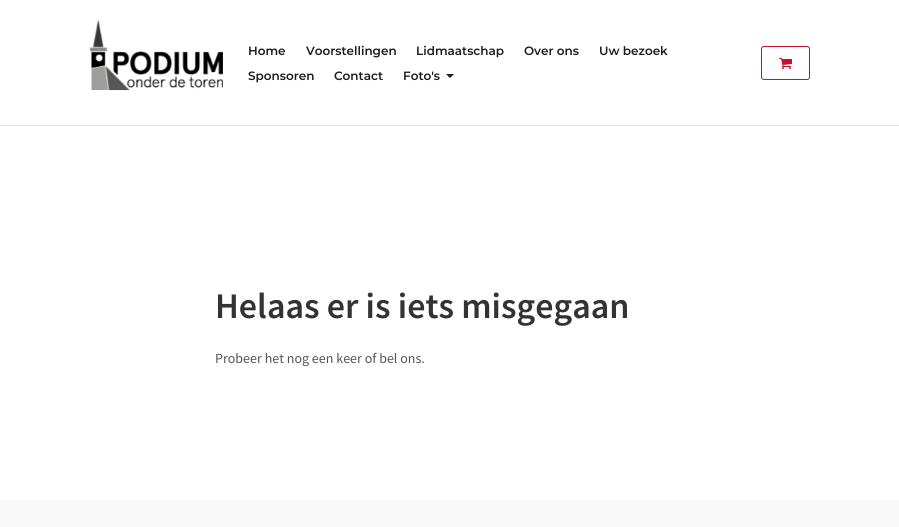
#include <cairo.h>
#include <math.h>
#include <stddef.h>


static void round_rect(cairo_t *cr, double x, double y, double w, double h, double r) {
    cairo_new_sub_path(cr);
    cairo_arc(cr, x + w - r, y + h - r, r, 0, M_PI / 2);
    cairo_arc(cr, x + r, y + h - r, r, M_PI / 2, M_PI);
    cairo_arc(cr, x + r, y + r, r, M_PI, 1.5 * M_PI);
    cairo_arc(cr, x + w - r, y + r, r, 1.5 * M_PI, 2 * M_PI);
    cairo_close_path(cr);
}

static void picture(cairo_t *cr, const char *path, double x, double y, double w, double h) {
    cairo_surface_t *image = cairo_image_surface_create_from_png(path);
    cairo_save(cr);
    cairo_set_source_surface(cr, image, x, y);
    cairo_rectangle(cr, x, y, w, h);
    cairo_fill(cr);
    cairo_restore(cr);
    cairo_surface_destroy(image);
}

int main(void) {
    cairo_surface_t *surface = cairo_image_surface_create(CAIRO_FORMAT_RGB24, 899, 527);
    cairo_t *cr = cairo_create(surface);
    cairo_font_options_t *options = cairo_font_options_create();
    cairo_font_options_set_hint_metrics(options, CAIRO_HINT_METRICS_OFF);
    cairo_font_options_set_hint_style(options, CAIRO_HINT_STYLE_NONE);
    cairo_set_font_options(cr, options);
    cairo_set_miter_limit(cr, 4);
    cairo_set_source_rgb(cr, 1, 1, 1);
    cairo_paint(cr);
    cairo_set_source_rgb(cr, 0.902, 0.902, 0.902);
    cairo_rectangle(cr, 0, 125, 899, 1);
    cairo_fill(cr);
    picture(cr, "img1.png", 89, 20, 134, 71);
    cairo_select_font_face(cr, "Montserrat SemiBold", CAIRO_FONT_SLANT_NORMAL, CAIRO_FONT_WEIGHT_NORMAL);
    cairo_set_font_size(cr, 12);
    cairo_set_source_rgb(cr, 0.114, 0.114, 0.106);
    cairo_move_to(cr, 248, 55);
    cairo_show_text(cr, "Home");
    cairo_move_to(cr, 306, 55);
    cairo_show_text(cr, "Voorstellingen");
    cairo_move_to(cr, 416, 55);
    cairo_show_text(cr, "Lidmaatschap");
    cairo_move_to(cr, 524, 55);
    cairo_show_text(cr, "Over ons");
    cairo_move_to(cr, 599, 55);
    cairo_show_text(cr, "Uw bezoek");
    cairo_move_to(cr, 248, 80);
    cairo_show_text(cr, "Sponsoren");
    cairo_move_to(cr, 334, 80);
    cairo_show_text(cr, "Contact");
    cairo_move_to(cr, 403, 80);
    cairo_show_text(cr, "Foto's");
    cairo_new_path(cr);
    cairo_move_to(cr, 446, 74);
    cairo_line_to(cr, 454, 74);
    cairo_line_to(cr, 450, 78);
    cairo_close_path(cr);
    cairo_fill(cr);
    round_rect(cr, 761.5, 46.5, 48, 33, 2.5);
    cairo_set_source_rgb(cr, 0.784, 0.063, 0.18);
    cairo_set_line_width(cr, 1);
    cairo_stroke(cr);
    picture(cr, "img2.png", 779, 58, 13, 11);
    cairo_select_font_face(cr, "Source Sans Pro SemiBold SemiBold", CAIRO_FONT_SLANT_NORMAL, CAIRO_FONT_WEIGHT_NORMAL);
    cairo_set_font_size(cr, 36);
    cairo_set_source_rgb(cr, 0.2, 0.2, 0.2);
    cairo_move_to(cr, 215, 318);
    cairo_show_text(cr, "Helaas er is iets misgegaan");
    cairo_select_font_face(cr, "Source Sans Pro", CAIRO_FONT_SLANT_NORMAL, CAIRO_FONT_WEIGHT_NORMAL);
    cairo_set_font_size(cr, 14);
    cairo_set_source_rgb(cr, 0.333, 0.333, 0.333);
    cairo_move_to(cr, 215, 363);
    cairo_show_text(cr, "Probeer het nog een keer of bel ons.");
    cairo_set_source_rgb(cr, 0.969, 0.969, 0.969);
    cairo_rectangle(cr, 0, 500, 899, 27);
    cairo_fill(cr);
    cairo_surface_write_to_png(surface, "page.png");
    cairo_font_options_destroy(options);
    cairo_destroy(cr);
    cairo_surface_destroy(surface);
    return 0;
}
